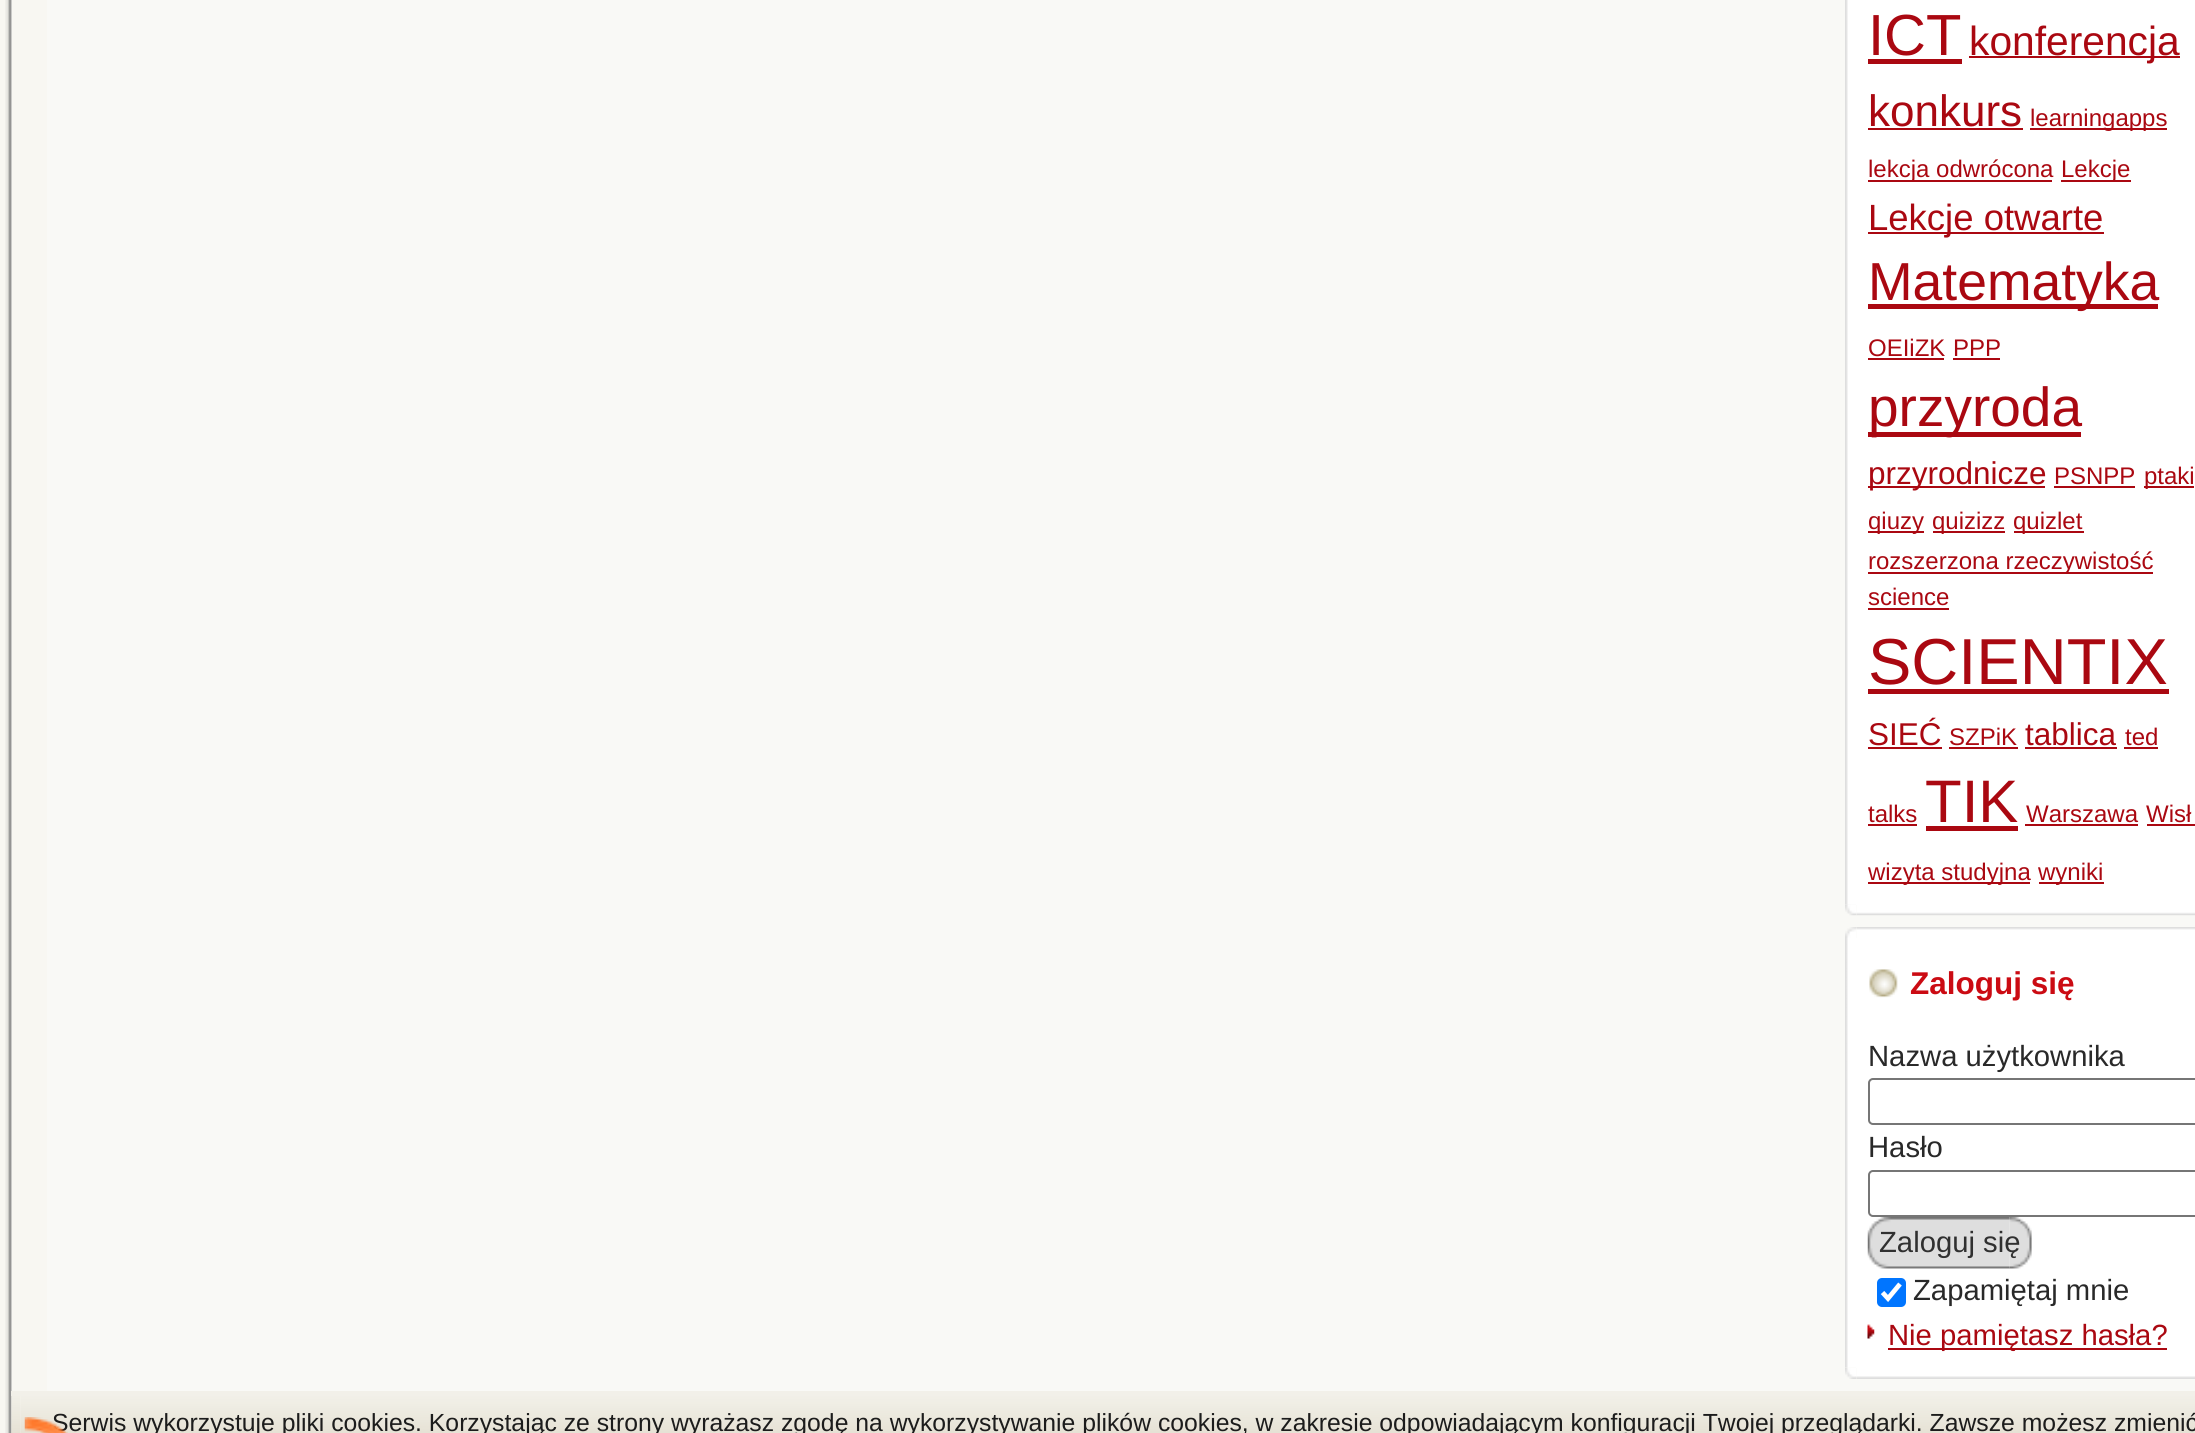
#include <cairo.h>
#include <math.h>
#include <stddef.h>


static void round_rect(cairo_t *cr, double x, double y, double w, double h, double r) {
    cairo_new_sub_path(cr);
    cairo_arc(cr, x + w - r, y + h - r, r, 0, M_PI / 2);
    cairo_arc(cr, x + r, y + h - r, r, M_PI / 2, M_PI);
    cairo_arc(cr, x + r, y + r, r, M_PI, 1.5 * M_PI);
    cairo_arc(cr, x + w - r, y + r, r, 1.5 * M_PI, 2 * M_PI);
    cairo_close_path(cr);
}

static void picture(cairo_t *cr, const char *path, double x, double y, double w, double h) {
    cairo_surface_t *image = cairo_image_surface_create_from_png(path);
    cairo_save(cr);
    cairo_set_source_surface(cr, image, x, y);
    cairo_rectangle(cr, x, y, w, h);
    cairo_fill(cr);
    cairo_restore(cr);
    cairo_surface_destroy(image);
}

int main(void) {
    cairo_surface_t *surface = cairo_image_surface_create(CAIRO_FORMAT_RGB24, 2195, 1433);
    cairo_t *cr = cairo_create(surface);
    cairo_font_options_t *options = cairo_font_options_create();
    cairo_font_options_set_hint_metrics(options, CAIRO_HINT_METRICS_OFF);
    cairo_font_options_set_hint_style(options, CAIRO_HINT_STYLE_NONE);
    cairo_set_font_options(cr, options);
    cairo_set_miter_limit(cr, 4);
    cairo_set_source_rgb(cr, 0.969, 0.965, 0.949);
    cairo_paint(cr);
    picture(cr, "img1.png", 5, 0, 7, 1433);
    cairo_set_source_rgb(cr, 0.976, 0.976, 0.961);
    cairo_rectangle(cr, 47, 0, 2148, 1391);
    cairo_fill(cr);
    picture(cr, "img2.png", 1845, 0, 11, 904);
    picture(cr, "img3.png", 1845, 904, 12, 12);
    cairo_set_source_rgb(cr, 1, 1, 1);
    cairo_rectangle(cr, 1856, 0, 339, 905);
    cairo_fill(cr);
    cairo_select_font_face(cr, "Liberation Sans", CAIRO_FONT_SLANT_NORMAL, CAIRO_FONT_WEIGHT_NORMAL);
    cairo_set_font_size(cr, 58);
    cairo_set_source_rgb(cr, 0.667, 0.035, 0.067);
    cairo_move_to(cr, 1868, 55);
    cairo_show_text(cr, "ICT");
    cairo_rectangle(cr, 1868, 59, 94, 5);
    cairo_fill(cr);
    cairo_rectangle(cr, 1969, 56, 211, 2);
    cairo_fill(cr);
    cairo_set_font_size(cr, 40.75);
    cairo_move_to(cr, 1969, 55);
    cairo_show_text(cr, "konferencja");
    cairo_set_font_size(cr, 44);
    cairo_move_to(cr, 1868, 126);
    cairo_show_text(cr, "konkurs");
    cairo_rectangle(cr, 1868, 128, 155, 2);
    cairo_fill(cr);
    cairo_rectangle(cr, 2030, 128, 137, 2);
    cairo_fill(cr);
    cairo_set_font_size(cr, 24);
    cairo_move_to(cr, 2030, 126);
    cairo_show_text(cr, "learningapps");
    cairo_rectangle(cr, 1868, 180, 184, 2);
    cairo_fill(cr);
    cairo_move_to(cr, 1868, 177);
    cairo_show_text(cr, "lekcja odwrócona");
    cairo_rectangle(cr, 2061, 180, 70, 2);
    cairo_fill(cr);
    cairo_move_to(cr, 2061, 177);
    cairo_show_text(cr, "Lekcje");
    cairo_rectangle(cr, 1868, 232, 236, 2);
    cairo_fill(cr);
    cairo_set_font_size(cr, 36.5);
    cairo_move_to(cr, 1868, 230);
    cairo_show_text(cr, "Lekcje otwarte");
    cairo_rectangle(cr, 1868, 304, 290, 5);
    cairo_fill(cr);
    cairo_set_font_size(cr, 53.5);
    cairo_move_to(cr, 1868, 300);
    cairo_show_text(cr, "Matematyka");
    cairo_set_font_size(cr, 24);
    cairo_move_to(cr, 1868, 356);
    cairo_show_text(cr, "OEIiZK");
    cairo_rectangle(cr, 1868, 358, 76, 2);
    cairo_fill(cr);
    cairo_move_to(cr, 1953, 356);
    cairo_show_text(cr, "PPP");
    cairo_rectangle(cr, 1953, 358, 47, 2);
    cairo_fill(cr);
    cairo_rectangle(cr, 1868, 432, 213, 5);
    cairo_fill(cr);
    cairo_set_font_size(cr, 55);
    cairo_move_to(cr, 1868, 426);
    cairo_show_text(cr, "przyroda");
    cairo_rectangle(cr, 1868, 486, 177, 2);
    cairo_fill(cr);
    cairo_set_font_size(cr, 31.5);
    cairo_move_to(cr, 1868, 484);
    cairo_show_text(cr, "przyrodnicze");
    cairo_set_font_size(cr, 24);
    cairo_move_to(cr, 2054, 484);
    cairo_show_text(cr, "PSNPP");
    cairo_rectangle(cr, 2054, 486, 81, 2);
    cairo_fill(cr);
    cairo_rectangle(cr, 2144, 486, 50, 2);
    cairo_fill(cr);
    cairo_move_to(cr, 2144, 484);
    cairo_show_text(cr, "ptaki");
    cairo_rectangle(cr, 1868, 531, 56, 2);
    cairo_fill(cr);
    cairo_move_to(cr, 1868, 529);
    cairo_show_text(cr, "qiuzy");
    cairo_rectangle(cr, 1933, 531, 72, 2);
    cairo_fill(cr);
    cairo_move_to(cr, 1932, 529);
    cairo_show_text(cr, "quizizz");
    cairo_rectangle(cr, 2014, 531, 70, 2);
    cairo_fill(cr);
    cairo_move_to(cr, 2013, 529);
    cairo_show_text(cr, "quizlet");
    cairo_rectangle(cr, 1868, 572, 285, 2);
    cairo_fill(cr);
    cairo_move_to(cr, 1868, 569);
    cairo_show_text(cr, "rozszerzona rzeczywistość");
    cairo_move_to(cr, 1868, 605);
    cairo_show_text(cr, "science");
    cairo_rectangle(cr, 1868, 608, 81, 2);
    cairo_fill(cr);
    cairo_set_font_size(cr, 65);
    cairo_move_to(cr, 1868, 684);
    cairo_show_text(cr, "SCIENTIX");
    cairo_rectangle(cr, 1868, 689, 301, 5);
    cairo_fill(cr);
    cairo_set_font_size(cr, 31.5);
    cairo_move_to(cr, 1868, 745);
    cairo_show_text(cr, "SIEĆ");
    cairo_rectangle(cr, 1868, 747, 74, 2);
    cairo_fill(cr);
    cairo_set_font_size(cr, 24);
    cairo_move_to(cr, 1949, 745);
    cairo_show_text(cr, "SZPiK");
    cairo_rectangle(cr, 1949, 747, 69, 2);
    cairo_fill(cr);
    cairo_set_font_size(cr, 31.5);
    cairo_move_to(cr, 2025, 745);
    cairo_show_text(cr, "tablica");
    cairo_rectangle(cr, 2025, 747, 92, 2);
    cairo_fill(cr);
    cairo_set_font_size(cr, 24);
    cairo_move_to(cr, 2125, 745);
    cairo_show_text(cr, "ted");
    cairo_rectangle(cr, 2124, 747, 34, 2);
    cairo_fill(cr);
    cairo_move_to(cr, 1868, 822);
    cairo_show_text(cr, "talks");
    cairo_rectangle(cr, 1868, 824, 49, 2);
    cairo_fill(cr);
    cairo_set_font_size(cr, 60);
    cairo_move_to(cr, 1925, 822);
    cairo_show_text(cr, "TIK");
    cairo_rectangle(cr, 1926, 826, 92, 5);
    cairo_fill(cr);
    cairo_set_font_size(cr, 24);
    cairo_move_to(cr, 2026, 822);
    cairo_show_text(cr, "Warszawa");
    cairo_rectangle(cr, 2025, 824, 113, 2);
    cairo_fill(cr);
    cairo_move_to(cr, 2146, 822);
    cairo_show_text(cr, "Wisł");
    cairo_rectangle(cr, 2147, 824, 48, 2);
    cairo_fill(cr);
    cairo_rectangle(cr, 1868, 882, 162, 2);
    cairo_fill(cr);
    cairo_move_to(cr, 1868, 880);
    cairo_show_text(cr, "wizyta studyjna");
    cairo_rectangle(cr, 2039, 882, 65, 2);
    cairo_fill(cr);
    cairo_move_to(cr, 2038, 880);
    cairo_show_text(cr, "wyniki");
    picture(cr, "img4.png", 1856, 905, 339, 11);
    picture(cr, "img5.png", 1845, 927, 12, 11);
    picture(cr, "img6.png", 1856, 927, 339, 11);
    picture(cr, "img12.png", 1845, 1367, 12, 12);
    picture(cr, "img7.png", 1845, 938, 11, 430);
    cairo_set_source_rgb(cr, 1, 1, 1);
    cairo_rectangle(cr, 1856, 938, 339, 430);
    cairo_fill(cr);
    picture(cr, "img8.png", 1869, 969, 29, 29);
    cairo_select_font_face(cr, "Liberation Sans", CAIRO_FONT_SLANT_NORMAL, CAIRO_FONT_WEIGHT_BOLD);
    cairo_set_font_size(cr, 31.5);
    cairo_set_source_rgb(cr, 0.796, 0.043, 0.078);
    cairo_move_to(cr, 1910, 994);
    cairo_show_text(cr, "Zaloguj się");
    cairo_select_font_face(cr, "Liberation Sans", CAIRO_FONT_SLANT_NORMAL, CAIRO_FONT_WEIGHT_NORMAL);
    cairo_set_font_size(cr, 29.25);
    cairo_set_source_rgb(cr, 0.161, 0.161, 0.161);
    cairo_move_to(cr, 1868, 1066);
    cairo_show_text(cr, "Nazwa użytkownika");
    round_rect(cr, 1869, 1079, 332, 45, 4);
    cairo_set_source_rgb(cr, 0.463, 0.463, 0.463);
    cairo_stroke(cr);
    cairo_set_source_rgb(cr, 0.161, 0.161, 0.161);
    cairo_move_to(cr, 1868, 1157);
    cairo_show_text(cr, "Hasło");
    round_rect(cr, 1869, 1171, 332, 45, 4);
    cairo_set_source_rgb(cr, 0.463, 0.463, 0.463);
    cairo_stroke(cr);
    picture(cr, "img9.png", 1867, 1217, 143, 52);
    picture(cr, "img10.png", 2009, 1217, 23, 52);
    cairo_set_source_rgb(cr, 0.188, 0.188, 0.188);
    cairo_move_to(cr, 1879, 1252);
    cairo_show_text(cr, "Zaloguj się");
    cairo_set_source_rgb(cr, 0, 0.459, 1);
    round_rect(cr, 1877, 1278, 29, 29, 5);
    cairo_fill(cr);
    cairo_new_path(cr);
    cairo_move_to(cr, 1882.5, 1292.5);
    cairo_line_to(cr, 1888, 1298.5);
    cairo_line_to(cr, 1900, 1284);
    cairo_set_source_rgb(cr, 1, 1, 1);
    cairo_set_line_width(cr, 4.7);
    cairo_stroke(cr);
    cairo_set_source_rgb(cr, 0.161, 0.161, 0.161);
    cairo_move_to(cr, 1913, 1300);
    cairo_show_text(cr, "Zapamiętaj mnie");
    picture(cr, "img11.png", 1867, 1324, 8, 15);
    cairo_set_source_rgb(cr, 0.667, 0.035, 0.067);
    cairo_rectangle(cr, 1888, 1348, 279, 2);
    cairo_fill(cr);
    cairo_move_to(cr, 1888, 1345);
    cairo_show_text(cr, "Nie pamiętasz hasła?");
    picture(cr, "img13.png", 1856, 1368, 339, 11);
    cairo_set_source_rgb(cr, 0.949, 0.941, 0.914);
    cairo_rectangle(cr, 11, 1391, 2184, 5);
    cairo_fill(cr);
    picture(cr, "img14.png", 11, 1396, 10, 37);
    picture(cr, "img15.png", 20, 1396, 2175, 37);
    cairo_set_font_size(cr, 24.75);
    cairo_set_source_rgb(cr, 0.11, 0.11, 0.11);
    cairo_move_to(cr, 52, 1431);
    cairo_show_text(cr, "Serwis wykorzystuje pliki cookies. Korzystając ze strony wyrażasz zgodę na wykorzystywanie plików cookies, w zakresie odpowiadającym konfiguracji Twojej przeglądarki. Zawsze możesz zmienić");
    picture(cr, "img16.png", 24, 1417, 44, 16);
    cairo_surface_write_to_png(surface, "page.png");
    cairo_font_options_destroy(options);
    cairo_destroy(cr);
    cairo_surface_destroy(surface);
    return 0;
}
